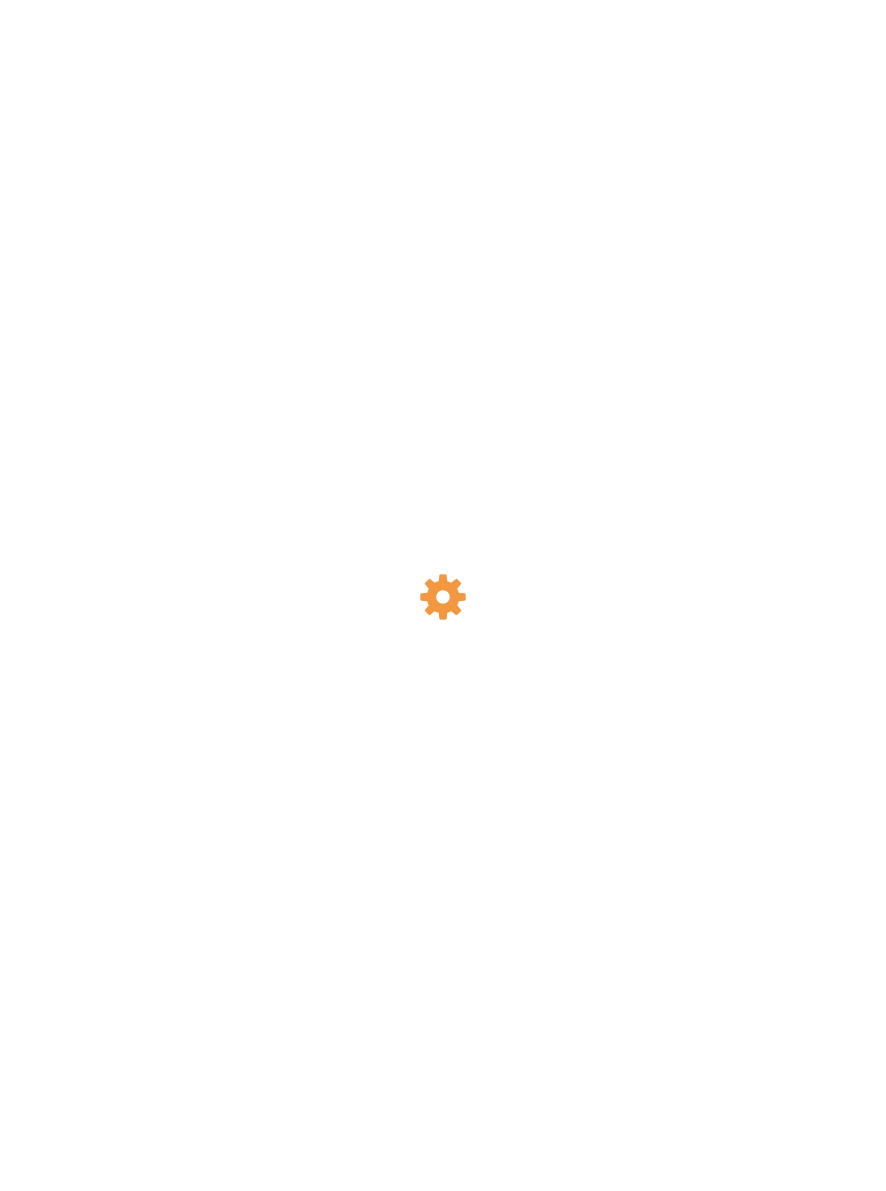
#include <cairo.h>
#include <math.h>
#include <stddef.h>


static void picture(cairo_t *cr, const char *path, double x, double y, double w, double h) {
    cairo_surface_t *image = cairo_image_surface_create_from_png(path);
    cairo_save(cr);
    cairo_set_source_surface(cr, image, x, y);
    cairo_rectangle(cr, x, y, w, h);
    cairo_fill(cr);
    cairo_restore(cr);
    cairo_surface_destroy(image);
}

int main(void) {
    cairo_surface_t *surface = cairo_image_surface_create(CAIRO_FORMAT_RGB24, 886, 1191);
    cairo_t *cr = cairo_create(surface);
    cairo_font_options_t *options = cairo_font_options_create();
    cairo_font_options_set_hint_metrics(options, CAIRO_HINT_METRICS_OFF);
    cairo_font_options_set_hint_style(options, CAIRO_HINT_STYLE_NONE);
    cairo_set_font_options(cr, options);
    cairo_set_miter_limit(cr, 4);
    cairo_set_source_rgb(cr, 1, 1, 1);
    cairo_paint(cr);
    picture(cr, "img1.png", 420, 574, 46, 46);
    cairo_surface_write_to_png(surface, "page.png");
    cairo_font_options_destroy(options);
    cairo_destroy(cr);
    cairo_surface_destroy(surface);
    return 0;
}
